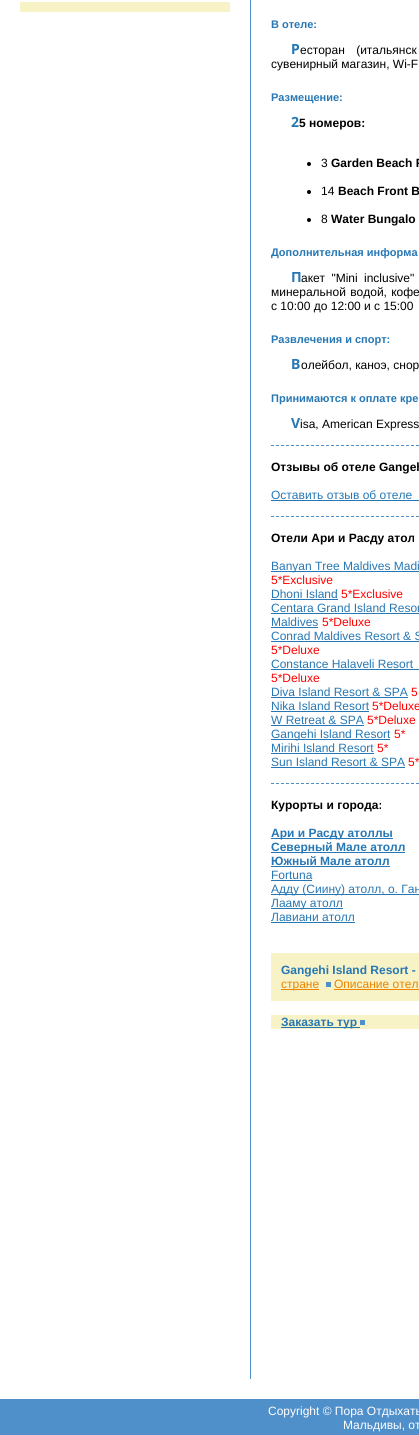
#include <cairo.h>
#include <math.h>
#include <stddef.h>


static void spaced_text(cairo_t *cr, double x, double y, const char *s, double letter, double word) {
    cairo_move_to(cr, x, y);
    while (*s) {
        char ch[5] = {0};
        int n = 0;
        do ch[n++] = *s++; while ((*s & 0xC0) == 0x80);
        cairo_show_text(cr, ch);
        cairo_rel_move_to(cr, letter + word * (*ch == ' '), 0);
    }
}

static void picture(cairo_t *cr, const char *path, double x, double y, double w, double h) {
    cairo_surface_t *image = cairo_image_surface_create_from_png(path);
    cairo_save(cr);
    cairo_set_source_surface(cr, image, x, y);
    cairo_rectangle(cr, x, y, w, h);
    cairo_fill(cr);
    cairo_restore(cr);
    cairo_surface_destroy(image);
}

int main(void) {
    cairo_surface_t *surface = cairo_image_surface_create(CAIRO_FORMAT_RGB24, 419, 1435);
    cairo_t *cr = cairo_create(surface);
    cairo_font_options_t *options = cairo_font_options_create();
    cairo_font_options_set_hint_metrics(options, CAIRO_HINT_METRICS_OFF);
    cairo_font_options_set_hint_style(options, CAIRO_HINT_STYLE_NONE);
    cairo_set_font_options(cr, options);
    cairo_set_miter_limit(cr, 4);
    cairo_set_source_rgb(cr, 1, 1, 1);
    cairo_paint(cr);
    cairo_set_source_rgb(cr, 0.965, 0.953, 0.776);
    cairo_rectangle(cr, 20, 2, 210, 10);
    cairo_fill(cr);
    cairo_set_source_rgb(cr, 0.31, 0.561, 0.792);
    cairo_rectangle(cr, 250, 0, 1, 1379);
    cairo_fill(cr);
    cairo_select_font_face(cr, "Liberation Sans", CAIRO_FONT_SLANT_NORMAL, CAIRO_FONT_WEIGHT_BOLD);
    cairo_set_font_size(cr, 11);
    cairo_set_source_rgb(cr, 0.149, 0.467, 0.706);
    cairo_move_to(cr, 271, 28);
    cairo_show_text(cr, "В отеле:");
    cairo_select_font_face(cr, "Noto Sans", CAIRO_FONT_SLANT_NORMAL, CAIRO_FONT_WEIGHT_BOLD);
    cairo_set_font_size(cr, 14);
    cairo_move_to(cr, 291, 54);
    cairo_show_text(cr, "Р");
    cairo_select_font_face(cr, "Liberation Sans", CAIRO_FONT_SLANT_NORMAL, CAIRO_FONT_WEIGHT_NORMAL);
    cairo_set_font_size(cr, 12);
    cairo_set_source_rgb(cr, 0, 0, 0);
    spaced_text(cr, 300, 54, "есторан (итальянск", 0, 8);
    cairo_move_to(cr, 271, 68);
    cairo_show_text(cr, "сувенирный магазин, Wi-F");
    cairo_select_font_face(cr, "Liberation Sans", CAIRO_FONT_SLANT_NORMAL, CAIRO_FONT_WEIGHT_BOLD);
    cairo_set_font_size(cr, 11);
    cairo_set_source_rgb(cr, 0.149, 0.467, 0.706);
    cairo_move_to(cr, 271, 101);
    cairo_show_text(cr, "Размещение:");
    cairo_select_font_face(cr, "Noto Sans", CAIRO_FONT_SLANT_NORMAL, CAIRO_FONT_WEIGHT_BOLD);
    cairo_set_font_size(cr, 14);
    cairo_move_to(cr, 291, 127);
    cairo_show_text(cr, "2");
    cairo_select_font_face(cr, "Liberation Sans", CAIRO_FONT_SLANT_NORMAL, CAIRO_FONT_WEIGHT_BOLD);
    cairo_set_font_size(cr, 12);
    cairo_set_source_rgb(cr, 0, 0, 0);
    cairo_move_to(cr, 299, 127);
    cairo_show_text(cr, "5 номеров:");
    cairo_new_path(cr);
    cairo_arc(cr, 309, 164, 2, 0, 2 * M_PI);
    cairo_fill(cr);
    cairo_select_font_face(cr, "Liberation Sans", CAIRO_FONT_SLANT_NORMAL, CAIRO_FONT_WEIGHT_NORMAL);
    cairo_move_to(cr, 321, 167);
    cairo_show_text(cr, "3");
    cairo_select_font_face(cr, "Liberation Sans", CAIRO_FONT_SLANT_NORMAL, CAIRO_FONT_WEIGHT_BOLD);
    cairo_move_to(cr, 331, 167);
    cairo_show_text(cr, "Garden Beach F");
    cairo_new_path(cr);
    cairo_arc(cr, 309, 192, 2, 0, 2 * M_PI);
    cairo_fill(cr);
    cairo_select_font_face(cr, "Liberation Sans", CAIRO_FONT_SLANT_NORMAL, CAIRO_FONT_WEIGHT_NORMAL);
    cairo_move_to(cr, 321, 195);
    cairo_show_text(cr, "14");
    cairo_select_font_face(cr, "Liberation Sans", CAIRO_FONT_SLANT_NORMAL, CAIRO_FONT_WEIGHT_BOLD);
    cairo_move_to(cr, 338, 195);
    cairo_show_text(cr, "Beach Front B");
    cairo_new_path(cr);
    cairo_arc(cr, 309, 220, 2, 0, 2 * M_PI);
    cairo_fill(cr);
    cairo_select_font_face(cr, "Liberation Sans", CAIRO_FONT_SLANT_NORMAL, CAIRO_FONT_WEIGHT_NORMAL);
    cairo_move_to(cr, 321, 223);
    cairo_show_text(cr, "8");
    cairo_select_font_face(cr, "Liberation Sans", CAIRO_FONT_SLANT_NORMAL, CAIRO_FONT_WEIGHT_BOLD);
    cairo_move_to(cr, 331, 223);
    cairo_show_text(cr, "Water Bungalo");
    cairo_set_font_size(cr, 11);
    cairo_set_source_rgb(cr, 0.149, 0.467, 0.706);
    cairo_move_to(cr, 271, 256);
    cairo_show_text(cr, "Дополнительная информа");
    cairo_select_font_face(cr, "Noto Sans", CAIRO_FONT_SLANT_NORMAL, CAIRO_FONT_WEIGHT_BOLD);
    cairo_set_font_size(cr, 14);
    cairo_move_to(cr, 291, 282);
    cairo_show_text(cr, "П");
    cairo_select_font_face(cr, "Liberation Sans", CAIRO_FONT_SLANT_NORMAL, CAIRO_FONT_WEIGHT_NORMAL);
    cairo_set_font_size(cr, 12);
    cairo_set_source_rgb(cr, 0, 0, 0);
    spaced_text(cr, 301, 282, "акет \"Mini inclusive\"", 0, 3);
    spaced_text(cr, 271, 296, "минеральной водой, кофе", 0, 1);
    cairo_move_to(cr, 271, 310);
    cairo_show_text(cr, "с 10:00 до 12:00 и с 15:00");
    cairo_select_font_face(cr, "Liberation Sans", CAIRO_FONT_SLANT_NORMAL, CAIRO_FONT_WEIGHT_BOLD);
    cairo_set_font_size(cr, 11);
    cairo_set_source_rgb(cr, 0.149, 0.467, 0.706);
    cairo_move_to(cr, 271, 343);
    cairo_show_text(cr, "Развлечения и спорт:");
    cairo_select_font_face(cr, "Noto Sans", CAIRO_FONT_SLANT_NORMAL, CAIRO_FONT_WEIGHT_BOLD);
    cairo_set_font_size(cr, 14);
    cairo_move_to(cr, 291, 369);
    cairo_show_text(cr, "В");
    cairo_select_font_face(cr, "Liberation Sans", CAIRO_FONT_SLANT_NORMAL, CAIRO_FONT_WEIGHT_NORMAL);
    cairo_set_font_size(cr, 12);
    cairo_set_source_rgb(cr, 0, 0, 0);
    cairo_move_to(cr, 301, 369);
    cairo_show_text(cr, "олейбол, каноэ, снор");
    cairo_select_font_face(cr, "Liberation Sans", CAIRO_FONT_SLANT_NORMAL, CAIRO_FONT_WEIGHT_BOLD);
    cairo_set_font_size(cr, 11);
    cairo_set_source_rgb(cr, 0.149, 0.467, 0.706);
    cairo_move_to(cr, 271, 402);
    cairo_show_text(cr, "Принимаются к оплате кре");
    cairo_select_font_face(cr, "Noto Sans", CAIRO_FONT_SLANT_NORMAL, CAIRO_FONT_WEIGHT_BOLD);
    cairo_set_font_size(cr, 14);
    cairo_move_to(cr, 291, 428);
    cairo_show_text(cr, "V");
    cairo_select_font_face(cr, "Liberation Sans", CAIRO_FONT_SLANT_NORMAL, CAIRO_FONT_WEIGHT_NORMAL);
    cairo_set_font_size(cr, 12);
    cairo_set_source_rgb(cr, 0, 0, 0);
    cairo_move_to(cr, 300, 428);
    cairo_show_text(cr, "isa, American Express");
    picture(cr, "img1.png", 271, 445, 148, 1);
    cairo_select_font_face(cr, "Liberation Sans", CAIRO_FONT_SLANT_NORMAL, CAIRO_FONT_WEIGHT_BOLD);
    cairo_move_to(cr, 271, 471);
    cairo_show_text(cr, "Отзывы об отеле Gangeh");
    cairo_select_font_face(cr, "Liberation Sans", CAIRO_FONT_SLANT_NORMAL, CAIRO_FONT_WEIGHT_NORMAL);
    cairo_set_source_rgb(cr, 0.149, 0.467, 0.706);
    cairo_move_to(cr, 271, 499);
    cairo_show_text(cr, "Оставить отзыв об отеле");
    cairo_rectangle(cr, 271, 500, 148, 1);
    cairo_fill(cr);
    picture(cr, "img1.png", 271, 516, 148, 1);
    cairo_select_font_face(cr, "Liberation Sans", CAIRO_FONT_SLANT_NORMAL, CAIRO_FONT_WEIGHT_BOLD);
    cairo_set_source_rgb(cr, 0, 0, 0);
    cairo_move_to(cr, 271, 542);
    cairo_show_text(cr, "Отели Ари и Расду атол");
    cairo_set_source_rgb(cr, 0.149, 0.467, 0.706);
    cairo_rectangle(cr, 271, 571, 148, 1);
    cairo_fill(cr);
    cairo_select_font_face(cr, "Liberation Sans", CAIRO_FONT_SLANT_NORMAL, CAIRO_FONT_WEIGHT_NORMAL);
    cairo_move_to(cr, 271, 570);
    cairo_show_text(cr, "Banyan Tree Maldives Madi");
    cairo_set_source_rgb(cr, 1, 0, 0);
    cairo_move_to(cr, 271, 584);
    cairo_show_text(cr, "5*Exclusive");
    cairo_set_source_rgb(cr, 0.149, 0.467, 0.706);
    cairo_move_to(cr, 271, 598);
    cairo_show_text(cr, "Dhoni Island");
    cairo_rectangle(cr, 271, 599, 67, 1);
    cairo_fill(cr);
    cairo_set_source_rgb(cr, 1, 0, 0);
    cairo_move_to(cr, 341, 598);
    cairo_show_text(cr, "5*Exclusive");
    cairo_set_source_rgb(cr, 0.149, 0.467, 0.706);
    cairo_move_to(cr, 271, 612);
    cairo_show_text(cr, "Centara Grand Island Resor");
    cairo_rectangle(cr, 271, 613, 148, 1);
    cairo_fill(cr);
    cairo_move_to(cr, 271, 626);
    cairo_show_text(cr, "Maldives");
    cairo_rectangle(cr, 271, 627, 47, 1);
    cairo_fill(cr);
    cairo_set_source_rgb(cr, 1, 0, 0);
    cairo_move_to(cr, 322, 626);
    cairo_show_text(cr, "5*Deluxe");
    cairo_set_source_rgb(cr, 0.149, 0.467, 0.706);
    cairo_move_to(cr, 271, 640);
    cairo_show_text(cr, "Conrad Maldives Resort & S");
    cairo_rectangle(cr, 271, 641, 148, 1);
    cairo_fill(cr);
    cairo_set_source_rgb(cr, 1, 0, 0);
    cairo_move_to(cr, 271, 654);
    cairo_show_text(cr, "5*Deluxe");
    cairo_set_source_rgb(cr, 0.149, 0.467, 0.706);
    cairo_move_to(cr, 271, 668);
    cairo_show_text(cr, "Constance Halaveli Resort");
    cairo_rectangle(cr, 271, 669, 148, 1);
    cairo_fill(cr);
    cairo_set_source_rgb(cr, 1, 0, 0);
    cairo_move_to(cr, 271, 682);
    cairo_show_text(cr, "5*Deluxe");
    cairo_set_source_rgb(cr, 0.149, 0.467, 0.706);
    cairo_move_to(cr, 271, 696);
    cairo_show_text(cr, "Diva Island Resort & SPA");
    cairo_rectangle(cr, 271, 697, 137, 1);
    cairo_fill(cr);
    cairo_set_source_rgb(cr, 1, 0, 0);
    cairo_move_to(cr, 411, 696);
    cairo_show_text(cr, "5");
    cairo_set_source_rgb(cr, 0.149, 0.467, 0.706);
    cairo_move_to(cr, 271, 710);
    cairo_show_text(cr, "Nika Island Resort");
    cairo_rectangle(cr, 271, 711, 98, 1);
    cairo_fill(cr);
    cairo_set_source_rgb(cr, 1, 0, 0);
    cairo_move_to(cr, 372, 710);
    cairo_show_text(cr, "5*Deluxe");
    cairo_set_source_rgb(cr, 0.149, 0.467, 0.706);
    cairo_move_to(cr, 271, 724);
    cairo_show_text(cr, "W Retreat & SPA");
    cairo_rectangle(cr, 271, 725, 93, 1);
    cairo_fill(cr);
    cairo_set_source_rgb(cr, 1, 0, 0);
    cairo_move_to(cr, 367, 724);
    cairo_show_text(cr, "5*Deluxe");
    cairo_set_source_rgb(cr, 0.149, 0.467, 0.706);
    cairo_rectangle(cr, 271, 739, 119, 1);
    cairo_fill(cr);
    cairo_move_to(cr, 271, 738);
    cairo_show_text(cr, "Gangehi Island Resort");
    cairo_set_source_rgb(cr, 1, 0, 0);
    cairo_move_to(cr, 394, 738);
    cairo_show_text(cr, "5*");
    cairo_set_source_rgb(cr, 0.149, 0.467, 0.706);
    cairo_move_to(cr, 271, 752);
    cairo_show_text(cr, "Mirihi Island Resort");
    cairo_rectangle(cr, 271, 753, 103, 1);
    cairo_fill(cr);
    cairo_set_source_rgb(cr, 1, 0, 0);
    cairo_move_to(cr, 377, 752);
    cairo_show_text(cr, "5*");
    cairo_set_source_rgb(cr, 0.149, 0.467, 0.706);
    cairo_move_to(cr, 271, 766);
    cairo_show_text(cr, "Sun Island Resort & SPA");
    cairo_rectangle(cr, 271, 767, 134, 1);
    cairo_fill(cr);
    cairo_set_source_rgb(cr, 1, 0, 0);
    cairo_move_to(cr, 408, 766);
    cairo_show_text(cr, "5*");
    picture(cr, "img1.png", 271, 783, 148, 1);
    cairo_select_font_face(cr, "Liberation Sans", CAIRO_FONT_SLANT_NORMAL, CAIRO_FONT_WEIGHT_BOLD);
    cairo_set_source_rgb(cr, 0, 0, 0);
    cairo_move_to(cr, 271, 809);
    cairo_show_text(cr, "Курорты и города:");
    cairo_set_source_rgb(cr, 0.149, 0.467, 0.706);
    cairo_rectangle(cr, 271, 838, 122, 1);
    cairo_fill(cr);
    cairo_move_to(cr, 271, 837);
    cairo_show_text(cr, "Ари и Расду атоллы");
    cairo_rectangle(cr, 271, 852, 134, 1);
    cairo_fill(cr);
    cairo_move_to(cr, 271, 851);
    cairo_show_text(cr, "Северный Мале атолл");
    cairo_move_to(cr, 271, 865);
    cairo_show_text(cr, "Южный Мале атолл");
    cairo_rectangle(cr, 271, 866, 119, 1);
    cairo_fill(cr);
    cairo_select_font_face(cr, "Liberation Sans", CAIRO_FONT_SLANT_NORMAL, CAIRO_FONT_WEIGHT_NORMAL);
    cairo_move_to(cr, 271, 879);
    cairo_show_text(cr, "Fortuna");
    cairo_rectangle(cr, 271, 880, 41, 1);
    cairo_fill(cr);
    cairo_rectangle(cr, 271, 894, 148, 1);
    cairo_fill(cr);
    cairo_move_to(cr, 271, 893);
    cairo_show_text(cr, "Адду (Сиину) атолл, о. Ган");
    cairo_rectangle(cr, 271, 908, 72, 1);
    cairo_fill(cr);
    cairo_move_to(cr, 271, 907);
    cairo_show_text(cr, "Лааму атолл");
    cairo_move_to(cr, 271, 921);
    cairo_show_text(cr, "Лавиани атолл");
    cairo_rectangle(cr, 271, 922, 84, 1);
    cairo_fill(cr);
    cairo_set_source_rgb(cr, 0.965, 0.953, 0.776);
    cairo_rectangle(cr, 271, 953, 148, 48);
    cairo_fill(cr);
    cairo_select_font_face(cr, "Liberation Sans", CAIRO_FONT_SLANT_NORMAL, CAIRO_FONT_WEIGHT_BOLD);
    cairo_set_source_rgb(cr, 0.149, 0.467, 0.706);
    cairo_move_to(cr, 281, 974);
    cairo_show_text(cr, "Gangehi Island Resort -");
    cairo_set_source_rgb(cr, 0.918, 0.518, 0);
    cairo_rectangle(cr, 281, 989, 38, 1);
    cairo_fill(cr);
    cairo_select_font_face(cr, "Liberation Sans", CAIRO_FONT_SLANT_NORMAL, CAIRO_FONT_WEIGHT_NORMAL);
    cairo_move_to(cr, 281, 988);
    cairo_show_text(cr, "стране");
    cairo_move_to(cr, 334, 988);
    cairo_show_text(cr, "Описание отел");
    cairo_set_source_rgb(cr, 0.31, 0.561, 0.792);
    cairo_rectangle(cr, 326, 982, 5, 5);
    cairo_fill(cr);
    cairo_set_source_rgb(cr, 0.918, 0.518, 0);
    cairo_rectangle(cr, 334, 989, 85, 1);
    cairo_fill(cr);
    cairo_set_source_rgb(cr, 0.965, 0.953, 0.776);
    cairo_rectangle(cr, 271, 1015, 148, 14);
    cairo_fill(cr);
    cairo_set_source_rgb(cr, 0.149, 0.467, 0.706);
    cairo_rectangle(cr, 281, 1027, 79, 1);
    cairo_fill(cr);
    cairo_select_font_face(cr, "Liberation Sans", CAIRO_FONT_SLANT_NORMAL, CAIRO_FONT_WEIGHT_BOLD);
    cairo_move_to(cr, 281, 1026);
    cairo_show_text(cr, "Заказать тур");
    cairo_set_source_rgb(cr, 0.31, 0.561, 0.792);
    cairo_rectangle(cr, 360, 1020, 5, 5);
    cairo_fill(cr);
    cairo_rectangle(cr, 0, 1399, 419, 36);
    cairo_fill(cr);
    cairo_select_font_face(cr, "Liberation Sans", CAIRO_FONT_SLANT_NORMAL, CAIRO_FONT_WEIGHT_NORMAL);
    cairo_set_source_rgb(cr, 1, 1, 1);
    cairo_move_to(cr, 268, 1415);
    cairo_show_text(cr, "Copyright © Пора Отдыхать");
    cairo_move_to(cr, 343, 1429);
    cairo_show_text(cr, "Мальдивы, от");
    cairo_surface_write_to_png(surface, "page.png");
    cairo_font_options_destroy(options);
    cairo_destroy(cr);
    cairo_surface_destroy(surface);
    return 0;
}
